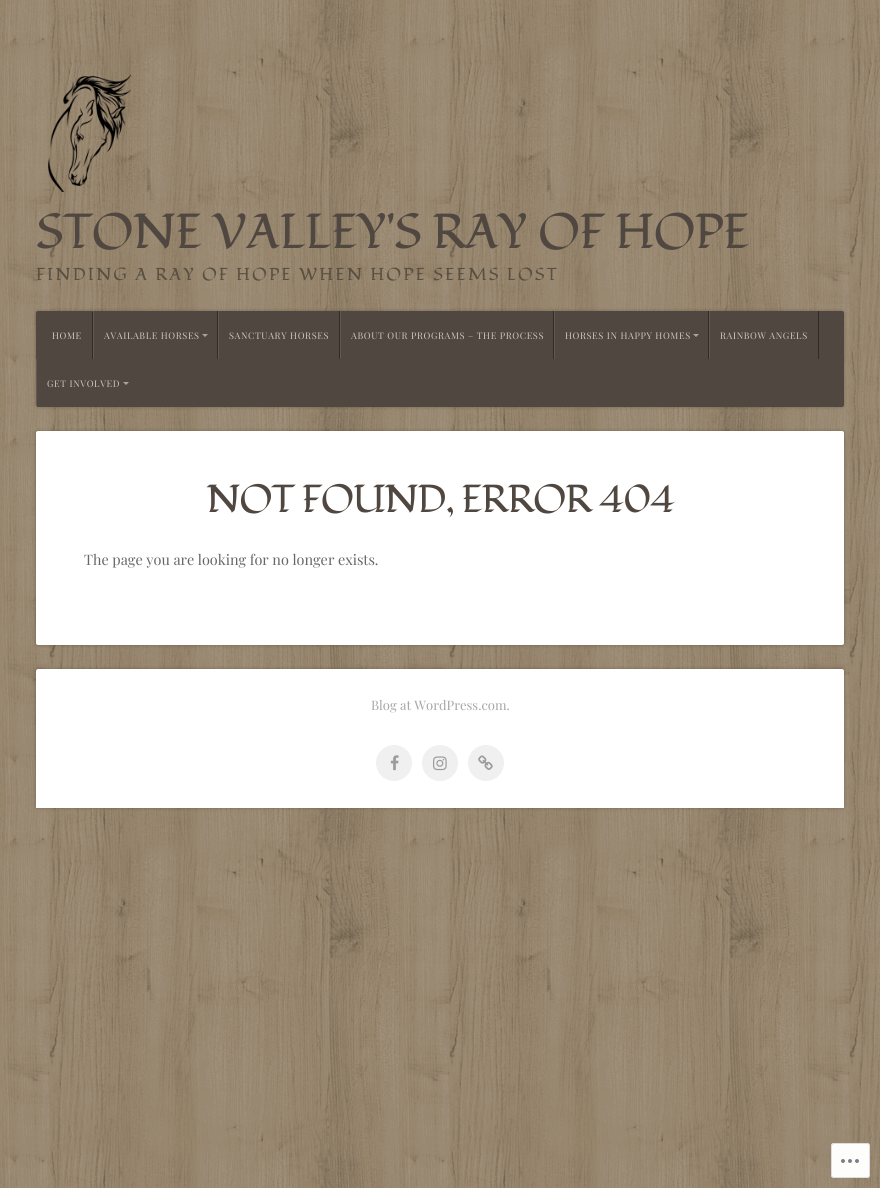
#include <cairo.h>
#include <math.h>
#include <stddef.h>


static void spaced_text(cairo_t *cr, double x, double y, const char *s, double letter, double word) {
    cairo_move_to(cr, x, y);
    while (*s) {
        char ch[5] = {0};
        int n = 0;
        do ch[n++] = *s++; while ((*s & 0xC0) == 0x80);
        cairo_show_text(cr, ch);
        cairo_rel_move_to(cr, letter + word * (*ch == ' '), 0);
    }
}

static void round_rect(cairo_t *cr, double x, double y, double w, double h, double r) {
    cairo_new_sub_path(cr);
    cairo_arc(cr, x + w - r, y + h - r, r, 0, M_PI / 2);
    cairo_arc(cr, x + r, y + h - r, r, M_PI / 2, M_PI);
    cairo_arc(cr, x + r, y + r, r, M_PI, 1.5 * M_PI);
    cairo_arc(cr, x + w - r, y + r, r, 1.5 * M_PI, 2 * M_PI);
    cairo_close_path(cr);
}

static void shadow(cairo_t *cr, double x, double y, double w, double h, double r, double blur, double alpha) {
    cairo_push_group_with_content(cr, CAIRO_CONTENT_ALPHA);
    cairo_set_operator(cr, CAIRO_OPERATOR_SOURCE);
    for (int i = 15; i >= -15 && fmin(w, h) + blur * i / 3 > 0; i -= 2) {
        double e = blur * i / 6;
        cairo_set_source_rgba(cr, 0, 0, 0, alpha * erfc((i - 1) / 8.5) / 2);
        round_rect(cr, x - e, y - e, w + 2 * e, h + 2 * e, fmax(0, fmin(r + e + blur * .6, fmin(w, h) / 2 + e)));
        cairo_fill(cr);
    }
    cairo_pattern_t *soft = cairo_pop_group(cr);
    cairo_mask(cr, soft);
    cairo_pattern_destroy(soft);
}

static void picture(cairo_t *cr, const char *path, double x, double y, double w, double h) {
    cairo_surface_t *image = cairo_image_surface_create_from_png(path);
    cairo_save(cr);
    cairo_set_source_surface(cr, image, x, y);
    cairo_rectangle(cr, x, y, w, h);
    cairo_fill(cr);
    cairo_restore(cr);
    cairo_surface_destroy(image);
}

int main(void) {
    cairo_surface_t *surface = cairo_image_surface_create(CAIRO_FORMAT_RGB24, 880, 1188);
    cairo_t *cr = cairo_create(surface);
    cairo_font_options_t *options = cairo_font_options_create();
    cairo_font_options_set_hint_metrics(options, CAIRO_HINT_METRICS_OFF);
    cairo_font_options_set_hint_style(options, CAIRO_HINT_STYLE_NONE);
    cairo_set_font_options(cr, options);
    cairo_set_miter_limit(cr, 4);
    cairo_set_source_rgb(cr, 1, 1, 1);
    cairo_paint(cr);
    picture(cr, "img1.png", 0, 0, 880, 1188);
    picture(cr, "img2.png", 48, 74, 83, 118);
    cairo_select_font_face(cr, "Fondamento", CAIRO_FONT_SLANT_NORMAL, CAIRO_FONT_WEIGHT_NORMAL);
    cairo_set_font_size(cr, 49);
    cairo_set_source_rgb(cr, 0.314, 0.278, 0.255);
    spaced_text(cr, 36, 248, "STONE VALLEY'S RAY OF HOPE", -1, 0);
    cairo_set_font_size(cr, 17.25);
    cairo_set_source_rgb(cr, 0.353, 0.314, 0.255);
    spaced_text(cr, 36, 280, "FINDING A RAY OF HOPE WHEN HOPE SEEMS LOST", 2, 0);
    cairo_set_source_rgb(cr, 0, 0, 0);
    shadow(cr, 36, 311, 808, 96, 2, 2, 0.24);
    cairo_set_source_rgb(cr, 0.314, 0.278, 0.255);
    round_rect(cr, 36, 311, 808, 96, 2);
    cairo_fill(cr);
    cairo_set_source_rgb(cr, 0.188, 0.169, 0.153);
    cairo_rectangle(cr, 92, 312, 1, 47);
    cairo_fill(cr);
    cairo_select_font_face(cr, "Playfair Display", CAIRO_FONT_SLANT_NORMAL, CAIRO_FONT_WEIGHT_NORMAL);
    cairo_set_font_size(cr, 9.2);
    cairo_set_source_rgb(cr, 0.796, 0.784, 0.776);
    spaced_text(cr, 52, 339, "HOME", 0.6, 0);
    cairo_set_source_rgb(cr, 0.188, 0.169, 0.153);
    cairo_rectangle(cr, 217, 311, 1, 48);
    cairo_fill(cr);
    cairo_set_source_rgb(cr, 0.384, 0.349, 0.329);
    cairo_rectangle(cr, 93, 311, 1, 48);
    cairo_fill(cr);
    cairo_set_source_rgb(cr, 0.796, 0.784, 0.776);
    spaced_text(cr, 104, 339, "AVAILABLE HORSES", 0.6, 0);
    cairo_set_source_rgb(cr, 0.659, 0.639, 0.627);
    cairo_new_path(cr);
    cairo_move_to(cr, 202, 334);
    cairo_line_to(cr, 208, 334);
    cairo_line_to(cr, 205, 337);
    cairo_close_path(cr);
    cairo_fill(cr);
    cairo_set_source_rgb(cr, 0.188, 0.169, 0.153);
    cairo_rectangle(cr, 339, 311, 1, 48);
    cairo_fill(cr);
    cairo_set_source_rgb(cr, 0.384, 0.349, 0.329);
    cairo_rectangle(cr, 218, 311, 1, 48);
    cairo_fill(cr);
    cairo_set_source_rgb(cr, 0.796, 0.784, 0.776);
    spaced_text(cr, 229, 339, "SANCTUARY HORSES", 0.6, 0);
    cairo_set_source_rgb(cr, 0.188, 0.169, 0.153);
    cairo_rectangle(cr, 553, 311, 1, 48);
    cairo_fill(cr);
    cairo_set_source_rgb(cr, 0.384, 0.349, 0.329);
    cairo_rectangle(cr, 340, 311, 1, 48);
    cairo_fill(cr);
    cairo_set_source_rgb(cr, 0.796, 0.784, 0.776);
    spaced_text(cr, 351, 339, "ABOUT OUR PROGRAMS – THE PROCESS", 0.6, 0);
    cairo_set_source_rgb(cr, 0.188, 0.169, 0.153);
    cairo_rectangle(cr, 708, 311, 1, 48);
    cairo_fill(cr);
    cairo_set_source_rgb(cr, 0.384, 0.349, 0.329);
    cairo_rectangle(cr, 554, 311, 1, 48);
    cairo_fill(cr);
    cairo_set_source_rgb(cr, 0.796, 0.784, 0.776);
    spaced_text(cr, 565, 339, "HORSES IN HAPPY HOMES", 0.6, 0);
    cairo_set_source_rgb(cr, 0.659, 0.639, 0.627);
    cairo_new_path(cr);
    cairo_move_to(cr, 693, 334);
    cairo_line_to(cr, 699, 334);
    cairo_line_to(cr, 696, 337);
    cairo_close_path(cr);
    cairo_fill(cr);
    cairo_set_source_rgb(cr, 0.188, 0.169, 0.153);
    cairo_rectangle(cr, 818, 311, 1, 48);
    cairo_fill(cr);
    cairo_set_source_rgb(cr, 0.384, 0.349, 0.329);
    cairo_rectangle(cr, 709, 311, 1, 48);
    cairo_fill(cr);
    cairo_set_source_rgb(cr, 0.796, 0.784, 0.776);
    spaced_text(cr, 720, 339, "RAINBOW ANGELS", 0.6, 0);
    cairo_set_source_rgba(cr, 1, 1, 1, 0.1);
    cairo_rectangle(cr, 36, 359, 1, 48);
    cairo_fill(cr);
    cairo_set_source_rgb(cr, 0.796, 0.784, 0.776);
    spaced_text(cr, 47, 387, "GET INVOLVED", 0.6, 0);
    cairo_set_source_rgb(cr, 0.659, 0.639, 0.627);
    cairo_new_path(cr);
    cairo_move_to(cr, 123, 382);
    cairo_line_to(cr, 129, 382);
    cairo_line_to(cr, 126, 385);
    cairo_close_path(cr);
    cairo_fill(cr);
    cairo_set_source_rgb(cr, 0, 0, 0);
    shadow(cr, 36, 431, 808, 214, 2, 2, 0.24);
    cairo_set_source_rgb(cr, 1, 1, 1);
    round_rect(cr, 36, 431, 808, 214, 2);
    cairo_fill(cr);
    cairo_select_font_face(cr, "Fondamento", CAIRO_FONT_SLANT_NORMAL, CAIRO_FONT_WEIGHT_NORMAL);
    cairo_set_font_size(cr, 38.9);
    cairo_set_source_rgb(cr, 0.314, 0.278, 0.255);
    spaced_text(cr, 206, 512, "NOT FOUND, ERROR 404", -1.4, 0);
    cairo_select_font_face(cr, "Playfair Display", CAIRO_FONT_SLANT_NORMAL, CAIRO_FONT_WEIGHT_NORMAL);
    cairo_set_font_size(cr, 14.4);
    cairo_set_source_rgb(cr, 0.4, 0.4, 0.4);
    cairo_move_to(cr, 84, 565);
    cairo_show_text(cr, "The page you are looking for no longer exists.");
    cairo_set_source_rgb(cr, 0, 0, 0);
    shadow(cr, 36, 669, 808, 139, 2, 2, 0.24);
    cairo_set_source_rgb(cr, 1, 1, 1);
    cairo_new_path(cr);
    cairo_move_to(cr, 38, 669);
    cairo_line_to(cr, 842, 669);
    cairo_curve_to(cr, 843, 669, 844, 670, 844, 671);
    cairo_line_to(cr, 844, 808);
    cairo_line_to(cr, 36, 808);
    cairo_line_to(cr, 36, 671);
    cairo_curve_to(cr, 36, 670, 37, 669, 38, 669);
    cairo_close_path(cr);
    cairo_fill(cr);
    cairo_set_font_size(cr, 13);
    cairo_set_source_rgb(cr, 0.651, 0.651, 0.651);
    cairo_move_to(cr, 371, 710);
    cairo_show_text(cr, "Blog at WordPress.com.");
    cairo_set_source_rgb(cr, 0.941, 0.941, 0.941);
    cairo_new_path(cr);
    cairo_arc(cr, 394, 763, 18, 0, 2 * M_PI);
    cairo_fill(cr);
    picture(cr, "img3.png", 390, 755, 9, 16);
    cairo_arc(cr, 440, 763, 18, 0, 2 * M_PI);
    cairo_fill(cr);
    picture(cr, "img4.png", 433, 756, 14, 15);
    cairo_arc(cr, 486, 763, 18, 0, 2 * M_PI);
    cairo_fill(cr);
    picture(cr, "img5.png", 478, 755, 15, 15);
    cairo_set_source_rgba(cr, 1, 1, 1, 0.98);
    round_rect(cr, 831, 1143, 39, 35, 3);
    cairo_fill(cr);
    round_rect(cr, 831.5, 1143.5, 38, 34, 2.5);
    cairo_set_source_rgba(cr, 0.863, 0.863, 0.871, 0.98);
    cairo_set_line_width(cr, 1);
    cairo_stroke(cr);
    picture(cr, "img6.png", 841, 1159, 18, 4);
    cairo_surface_write_to_png(surface, "page.png");
    cairo_font_options_destroy(options);
    cairo_destroy(cr);
    cairo_surface_destroy(surface);
    return 0;
}
